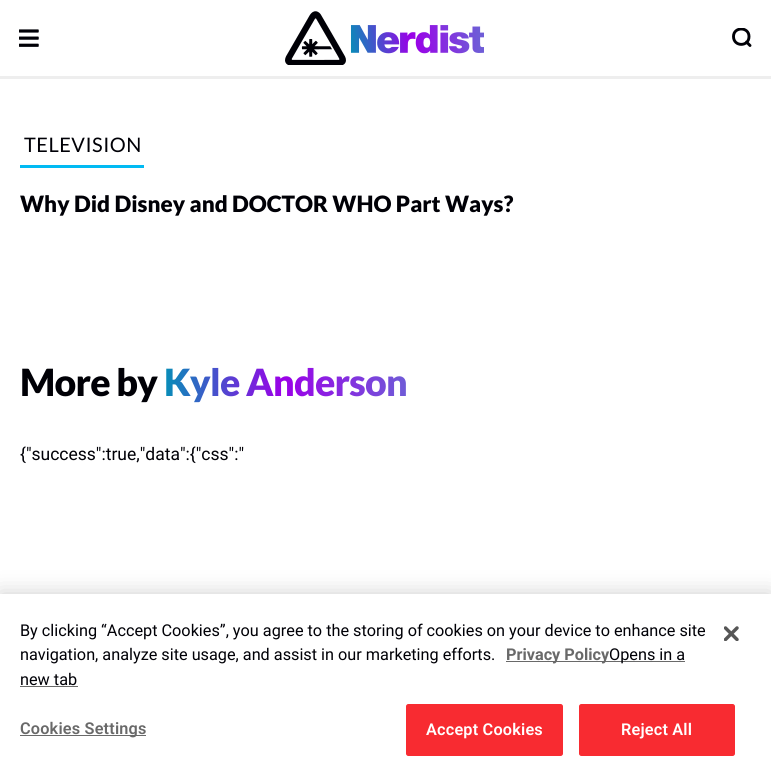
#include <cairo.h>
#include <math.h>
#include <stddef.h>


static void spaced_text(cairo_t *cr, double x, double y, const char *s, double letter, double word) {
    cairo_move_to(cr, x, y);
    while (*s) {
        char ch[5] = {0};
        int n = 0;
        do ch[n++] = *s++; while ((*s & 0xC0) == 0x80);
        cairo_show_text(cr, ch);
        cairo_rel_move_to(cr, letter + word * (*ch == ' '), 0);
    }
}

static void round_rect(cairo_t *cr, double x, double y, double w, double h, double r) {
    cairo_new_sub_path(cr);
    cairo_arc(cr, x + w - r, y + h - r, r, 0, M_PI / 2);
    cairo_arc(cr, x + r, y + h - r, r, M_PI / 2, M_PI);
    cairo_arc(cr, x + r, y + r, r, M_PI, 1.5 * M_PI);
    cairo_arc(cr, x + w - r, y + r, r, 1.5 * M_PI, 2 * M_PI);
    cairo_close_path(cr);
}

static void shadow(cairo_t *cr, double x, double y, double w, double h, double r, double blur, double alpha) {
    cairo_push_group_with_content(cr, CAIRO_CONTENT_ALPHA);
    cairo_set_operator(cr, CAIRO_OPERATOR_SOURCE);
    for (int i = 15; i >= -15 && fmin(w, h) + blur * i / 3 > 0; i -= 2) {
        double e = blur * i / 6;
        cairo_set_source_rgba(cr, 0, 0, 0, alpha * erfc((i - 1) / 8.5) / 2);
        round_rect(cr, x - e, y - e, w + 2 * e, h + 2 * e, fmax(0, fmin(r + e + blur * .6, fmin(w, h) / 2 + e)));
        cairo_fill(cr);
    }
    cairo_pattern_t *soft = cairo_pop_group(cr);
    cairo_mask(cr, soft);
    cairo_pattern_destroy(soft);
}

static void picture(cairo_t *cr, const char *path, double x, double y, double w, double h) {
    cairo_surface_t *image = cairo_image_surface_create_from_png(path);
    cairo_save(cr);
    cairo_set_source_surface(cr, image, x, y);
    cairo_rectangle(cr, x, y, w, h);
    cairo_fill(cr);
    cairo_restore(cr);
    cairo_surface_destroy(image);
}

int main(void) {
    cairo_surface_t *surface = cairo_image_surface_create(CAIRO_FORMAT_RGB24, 771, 778);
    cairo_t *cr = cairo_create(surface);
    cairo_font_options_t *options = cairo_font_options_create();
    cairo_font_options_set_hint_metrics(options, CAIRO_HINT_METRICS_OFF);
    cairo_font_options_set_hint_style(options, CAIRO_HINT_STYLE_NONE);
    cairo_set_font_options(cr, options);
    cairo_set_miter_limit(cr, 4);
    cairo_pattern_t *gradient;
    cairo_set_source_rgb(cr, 1, 1, 1);
    cairo_paint(cr);
    cairo_set_source_rgb(cr, 0.933, 0.933, 0.933);
    cairo_rectangle(cr, 0, 76, 771, 3);
    cairo_fill(cr);
    picture(cr, "img1.png", 19, 29, 20, 18);
    picture(cr, "img2.png", 285, 11, 199, 54);
    cairo_save(cr);
    cairo_rectangle(cr, 731, 28, 22, 20);
    cairo_clip(cr);
    cairo_new_path(cr);
    cairo_move_to(cr, 749, 36.5);
    cairo_curve_to(cr, 749, 47, 733.5, 47, 733.5, 36.5);
    cairo_curve_to(cr, 733.5, 26.5, 749, 26.5, 749, 36.5);
    cairo_close_path(cr);
    cairo_move_to(cr, 750, 45.5);
    cairo_line_to(cr, 746.5, 42);
    cairo_set_source_rgb(cr, 0, 0, 0.024);
    cairo_set_line_width(cr, 2.9);
    cairo_set_line_cap(cr, CAIRO_LINE_CAP_ROUND);
    cairo_set_line_join(cr, CAIRO_LINE_JOIN_ROUND);
    cairo_stroke(cr);
    cairo_restore(cr);
    cairo_set_source_rgb(cr, 0.004, 0.729, 0.953);
    cairo_rectangle(cr, 20, 165, 124, 3);
    cairo_fill(cr);
    cairo_select_font_face(cr, "Lato", CAIRO_FONT_SLANT_NORMAL, CAIRO_FONT_WEIGHT_NORMAL);
    cairo_set_font_size(cr, 20);
    cairo_set_source_rgb(cr, 0, 0, 0.024);
    spaced_text(cr, 24, 152, "TELEVISION", 0.5, 0);
    cairo_select_font_face(cr, "Lato Black", CAIRO_FONT_SLANT_NORMAL, CAIRO_FONT_WEIGHT_NORMAL);
    cairo_set_font_size(cr, 22.5);
    cairo_move_to(cr, 20, 212);
    cairo_show_text(cr, "Why Did Disney and DOCTOR WHO Part Ways?");
    cairo_set_font_size(cr, 37.5);
    spaced_text(cr, 20, 396, "More by", -0.75, 0);
    gradient = cairo_pattern_create_linear(164, 381, 407, 381);
    cairo_pattern_add_color_stop_rgba(gradient, 0, 0.027, 0.557, 0.718, 1);
    cairo_pattern_add_color_stop_rgba(gradient, 0.49, 0.608, 0, 0.91, 1);
    cairo_pattern_add_color_stop_rgba(gradient, 1, 0.435, 0.361, 0.843, 1);
    cairo_set_source(cr, gradient);
    cairo_pattern_destroy(gradient);
    spaced_text(cr, 164, 396, "Kyle Anderson", -0.75, 0);
    cairo_select_font_face(cr, "Roboto", CAIRO_FONT_SLANT_NORMAL, CAIRO_FONT_WEIGHT_NORMAL);
    cairo_set_font_size(cr, 17.5);
    cairo_set_source_rgb(cr, 0, 0, 0.024);
    cairo_move_to(cr, 20, 460);
    cairo_show_text(cr, "{\"success\":true,\"data\":{\"css\":\"");
    cairo_set_source_rgb(cr, 0, 0, 0);
    shadow(cr, 0, 594, 771, 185, 0, 11, 0.2);
    cairo_set_source_rgb(cr, 1, 1, 1);
    cairo_rectangle(cr, 0, 594, 771, 184);
    cairo_fill(cr);
    cairo_set_font_size(cr, 16.25);
    cairo_set_source_rgb(cr, 0, 0, 0.024);
    cairo_move_to(cr, 20, 636);
    cairo_show_text(cr, "By clicking “Accept Cookies”, you agree to the storing of cookies on your device to enhance site");
    cairo_move_to(cr, 20, 660);
    cairo_show_text(cr, "navigation, analyze site usage, and assist in our marketing efforts.");
    cairo_set_source_rgb(cr, 0.412, 0.412, 0.412);
    cairo_rectangle(cr, 506, 661, 179, 1);
    cairo_fill(cr);
    cairo_select_font_face(cr, "Roboto", CAIRO_FONT_SLANT_NORMAL, CAIRO_FONT_WEIGHT_BOLD);
    cairo_move_to(cr, 506, 660);
    cairo_show_text(cr, "Privacy Policy");
    cairo_select_font_face(cr, "Roboto", CAIRO_FONT_SLANT_NORMAL, CAIRO_FONT_WEIGHT_NORMAL);
    cairo_set_source_rgb(cr, 0, 0, 0.024);
    cairo_move_to(cr, 609, 660);
    cairo_show_text(cr, "Opens in a");
    cairo_move_to(cr, 20, 685);
    cairo_show_text(cr, "new tab");
    cairo_set_source_rgb(cr, 0.412, 0.412, 0.412);
    cairo_rectangle(cr, 20, 686, 58, 1);
    cairo_fill(cr);
    cairo_rectangle(cr, 20, 735, 126, 1);
    cairo_fill(cr);
    cairo_select_font_face(cr, "Roboto SemiBold", CAIRO_FONT_SLANT_NORMAL, CAIRO_FONT_WEIGHT_NORMAL);
    spaced_text(cr, 20, 734, "Cookies Settings", 0.2, 0);
    cairo_set_source_rgb(cr, 0.969, 0.169, 0.192);
    round_rect(cr, 406.5, 704.5, 156, 51, 2);
    cairo_fill_preserve(cr);
    cairo_set_line_width(cr, 1);
    cairo_stroke(cr);
    cairo_set_source_rgb(cr, 1, 1, 1);
    spaced_text(cr, 426, 735, "Accept Cookies", 0.2, 0);
    cairo_set_source_rgb(cr, 0.969, 0.169, 0.192);
    round_rect(cr, 579.5, 704.5, 155, 51, 2);
    cairo_fill_preserve(cr);
    cairo_stroke(cr);
    cairo_set_source_rgb(cr, 1, 1, 1);
    spaced_text(cr, 621, 735, "Reject All", 0.2, 0);
    picture(cr, "img3.png", 724, 626, 15, 15);
    cairo_surface_write_to_png(surface, "page.png");
    cairo_font_options_destroy(options);
    cairo_destroy(cr);
    cairo_surface_destroy(surface);
    return 0;
}
